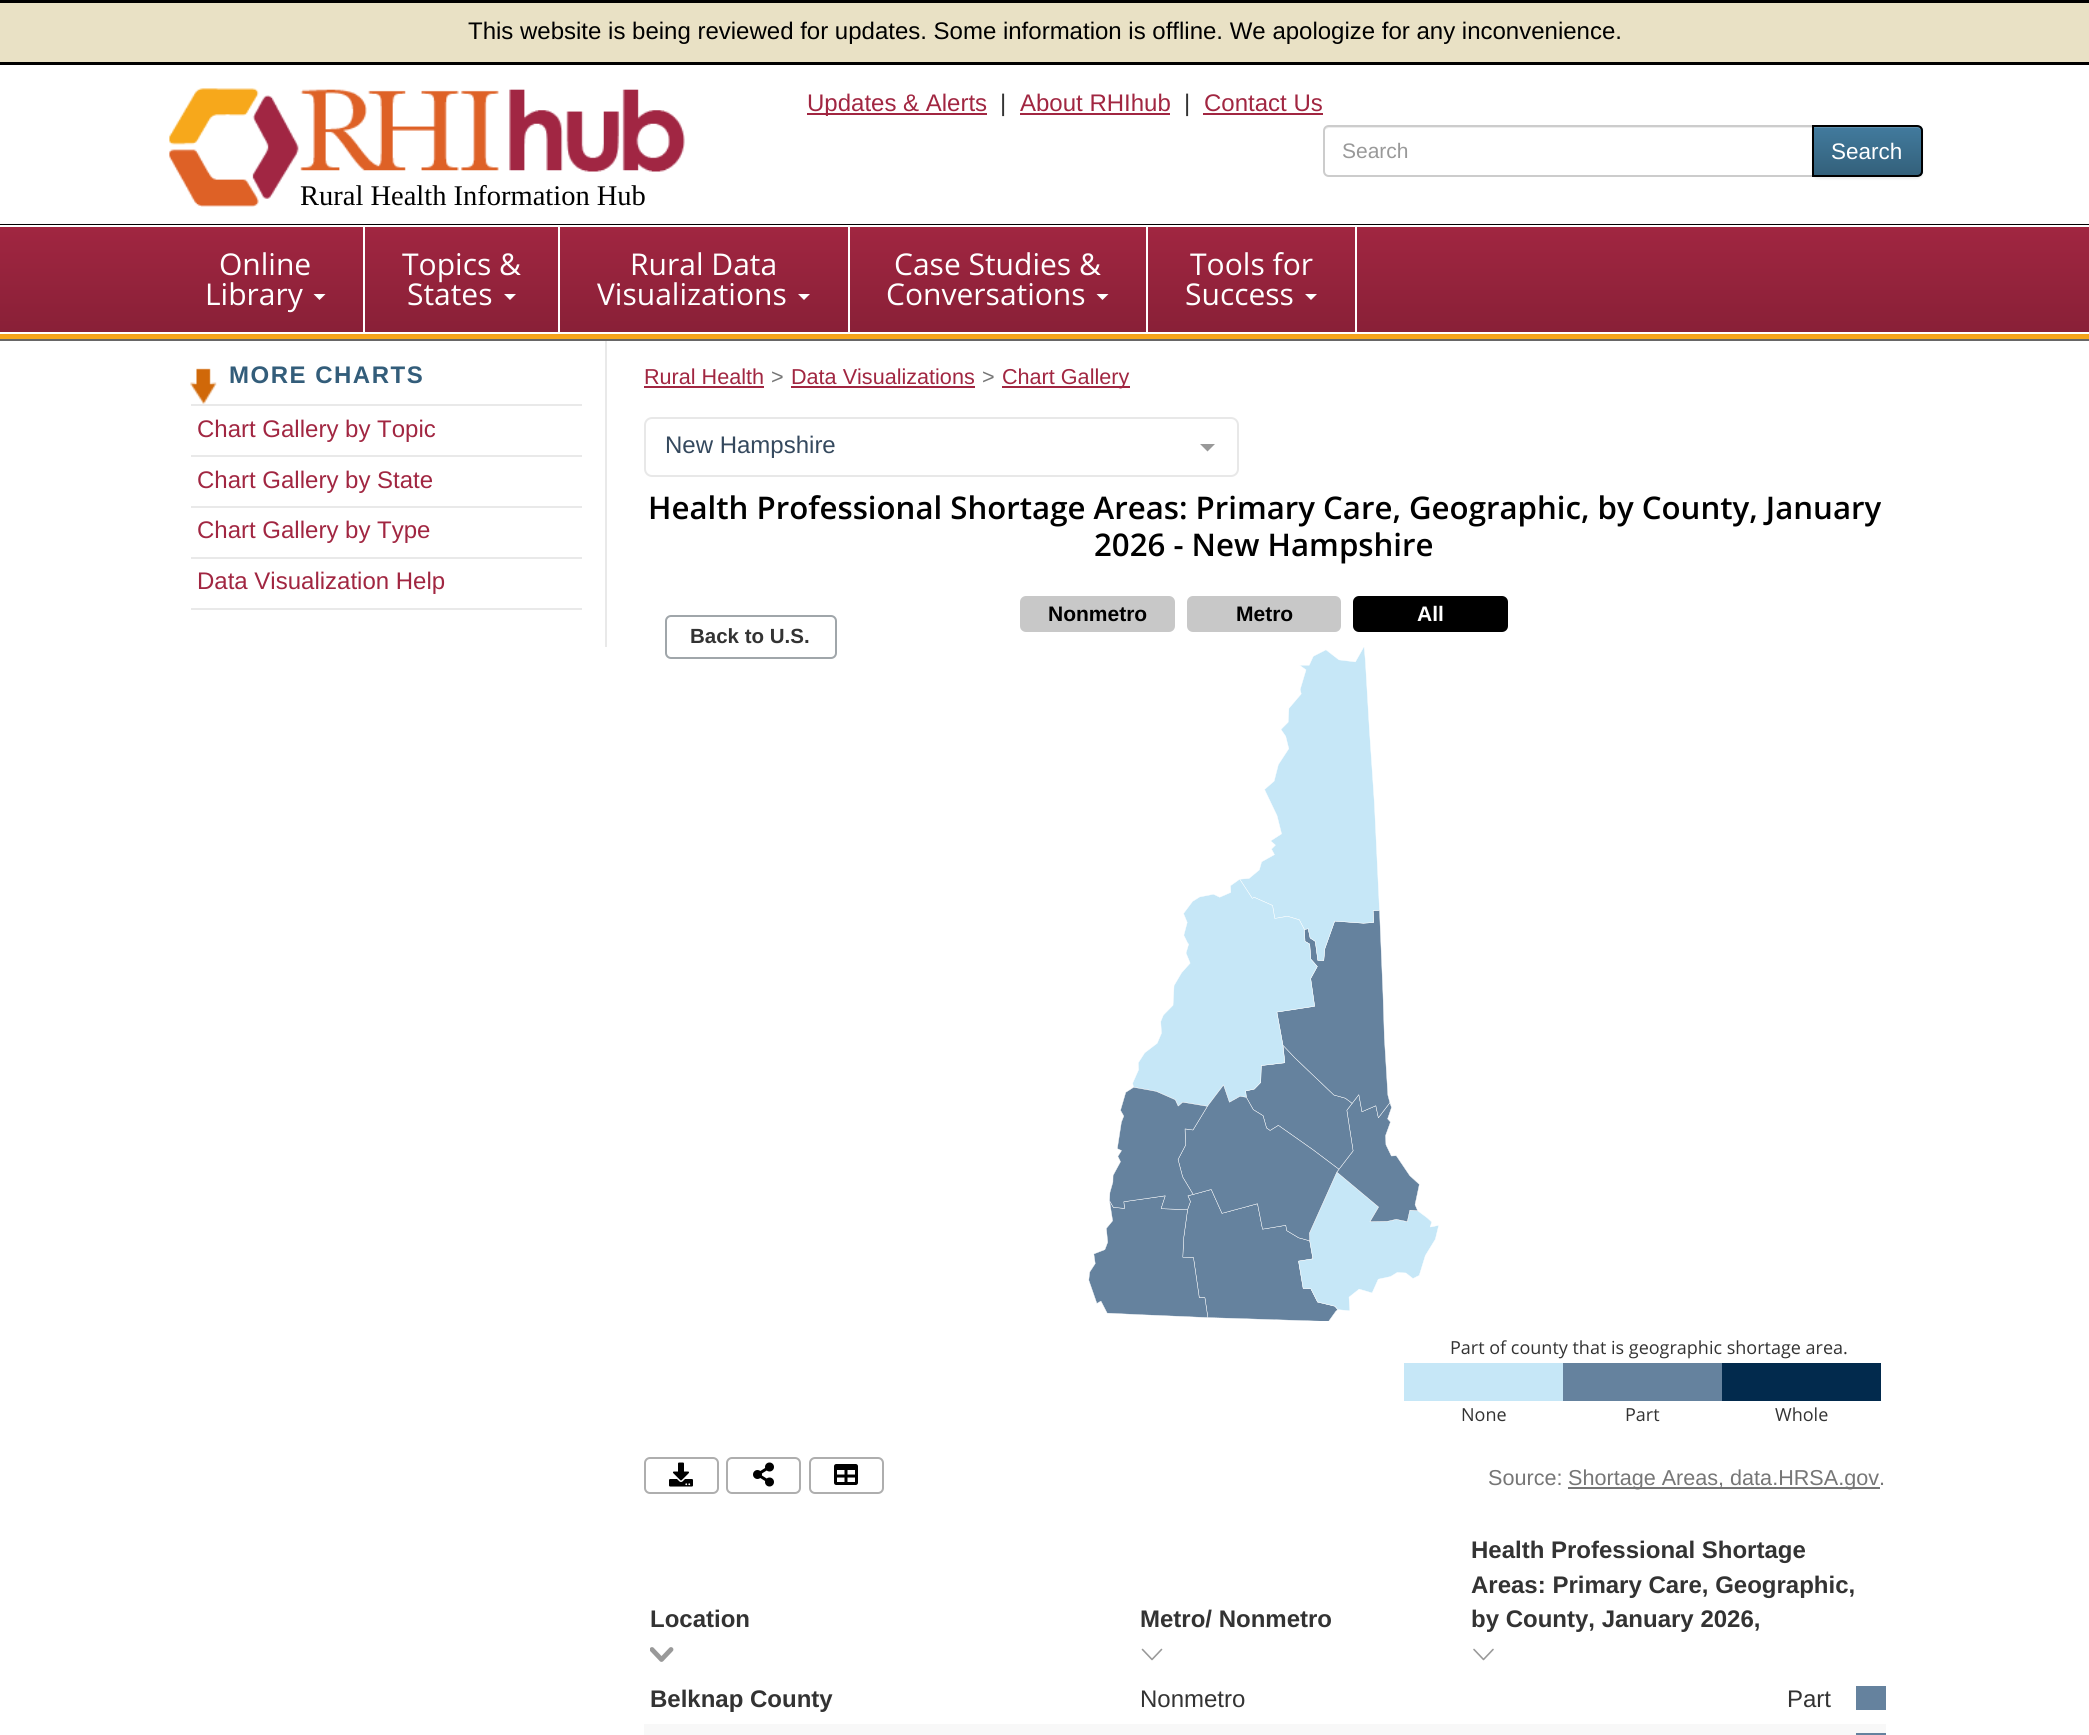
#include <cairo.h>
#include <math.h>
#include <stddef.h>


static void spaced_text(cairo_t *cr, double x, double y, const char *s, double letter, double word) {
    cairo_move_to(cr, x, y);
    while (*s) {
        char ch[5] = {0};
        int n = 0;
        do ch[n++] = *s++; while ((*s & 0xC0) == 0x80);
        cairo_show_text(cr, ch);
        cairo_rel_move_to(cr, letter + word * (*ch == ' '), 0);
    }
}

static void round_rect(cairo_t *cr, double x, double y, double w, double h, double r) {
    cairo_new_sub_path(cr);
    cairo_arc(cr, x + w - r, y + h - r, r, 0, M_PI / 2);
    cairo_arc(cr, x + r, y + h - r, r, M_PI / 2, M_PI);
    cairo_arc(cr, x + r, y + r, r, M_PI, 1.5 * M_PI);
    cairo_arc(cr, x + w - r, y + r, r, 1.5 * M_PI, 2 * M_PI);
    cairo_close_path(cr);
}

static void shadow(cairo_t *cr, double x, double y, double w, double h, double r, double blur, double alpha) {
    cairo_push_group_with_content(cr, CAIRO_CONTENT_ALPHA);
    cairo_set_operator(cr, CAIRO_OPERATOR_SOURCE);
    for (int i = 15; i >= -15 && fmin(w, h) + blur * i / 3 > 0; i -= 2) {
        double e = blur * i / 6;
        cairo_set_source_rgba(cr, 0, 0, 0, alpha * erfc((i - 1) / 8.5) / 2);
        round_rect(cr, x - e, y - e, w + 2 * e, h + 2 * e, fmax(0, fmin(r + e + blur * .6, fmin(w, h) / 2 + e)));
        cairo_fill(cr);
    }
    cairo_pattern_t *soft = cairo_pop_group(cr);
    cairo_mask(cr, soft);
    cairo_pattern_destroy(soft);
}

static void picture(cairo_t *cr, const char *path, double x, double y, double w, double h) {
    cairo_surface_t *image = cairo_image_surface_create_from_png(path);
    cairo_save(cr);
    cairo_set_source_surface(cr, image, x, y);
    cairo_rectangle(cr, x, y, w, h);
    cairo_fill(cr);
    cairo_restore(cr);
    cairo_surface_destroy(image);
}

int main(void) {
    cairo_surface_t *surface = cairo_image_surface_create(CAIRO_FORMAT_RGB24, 2089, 1735);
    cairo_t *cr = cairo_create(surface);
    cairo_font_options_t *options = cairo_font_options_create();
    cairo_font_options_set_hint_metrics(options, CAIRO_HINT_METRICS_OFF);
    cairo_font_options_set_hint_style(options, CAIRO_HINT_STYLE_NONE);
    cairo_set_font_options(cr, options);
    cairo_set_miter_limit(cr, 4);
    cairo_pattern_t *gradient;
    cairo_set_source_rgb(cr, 1, 1, 1);
    cairo_paint(cr);
    cairo_set_source_rgb(cr, 0, 0, 0);
    cairo_rectangle(cr, 0, 224, 2089, 1);
    cairo_fill(cr);
    cairo_set_source_rgb(cr, 0.914, 0.882, 0.773);
    cairo_rectangle(cr, 0, 3, 2089, 59);
    cairo_fill(cr);
    cairo_set_source_rgb(cr, 0, 0, 0);
    cairo_rectangle(cr, 0, 0, 2089, 3);
    cairo_fill(cr);
    cairo_rectangle(cr, 0, 62, 2089, 3);
    cairo_fill(cr);
    cairo_select_font_face(cr, "Liberation Sans", CAIRO_FONT_SLANT_NORMAL, CAIRO_FONT_WEIGHT_NORMAL);
    cairo_set_font_size(cr, 24);
    cairo_move_to(cr, 468, 39);
    cairo_show_text(cr, "This website is being reviewed for updates. Some information is offline. We apologize for any inconvenience.");
    cairo_set_source_rgb(cr, 0.631, 0.149, 0.255);
    cairo_rectangle(cr, 807, 113, 180, 2);
    cairo_fill(cr);
    cairo_move_to(cr, 807, 111);
    cairo_show_text(cr, "Updates & Alerts");
    cairo_set_source_rgb(cr, 0.2, 0.2, 0.2);
    cairo_move_to(cr, 1000, 111);
    cairo_show_text(cr, "|");
    cairo_set_source_rgb(cr, 0.631, 0.149, 0.255);
    cairo_move_to(cr, 1020, 111);
    cairo_show_text(cr, "About RHIhub");
    cairo_rectangle(cr, 1020, 113, 150, 2);
    cairo_fill(cr);
    cairo_set_source_rgb(cr, 0.2, 0.2, 0.2);
    cairo_move_to(cr, 1184, 111);
    cairo_show_text(cr, "|");
    cairo_set_source_rgb(cr, 0.631, 0.149, 0.255);
    cairo_move_to(cr, 1204, 111);
    cairo_show_text(cr, "Contact Us");
    cairo_rectangle(cr, 1203, 113, 120, 2);
    cairo_fill(cr);
    cairo_set_source_rgb(cr, 0.925, 0.925, 0.925);
    cairo_new_path(cr);
    cairo_move_to(cr, 1329, 128);
    cairo_line_to(cr, 1812, 128);
    cairo_line_to(cr, 1812, 126);
    cairo_line_to(cr, 1330, 126);
    cairo_curve_to(cr, 1328, 126, 1326, 128, 1325, 130);
    cairo_curve_to(cr, 1326, 129, 1328, 128, 1329, 128);
    cairo_close_path(cr);
    cairo_fill(cr);
    cairo_new_path(cr);
    cairo_move_to(cr, 1329, 126);
    cairo_line_to(cr, 1813, 126);
    cairo_line_to(cr, 1813, 176);
    cairo_line_to(cr, 1329, 176);
    cairo_curve_to(cr, 1326, 176, 1324, 174, 1324, 171);
    cairo_line_to(cr, 1324, 131);
    cairo_curve_to(cr, 1324, 128, 1326, 126, 1329, 126);
    cairo_close_path(cr);
    cairo_set_source_rgb(cr, 0.8, 0.8, 0.8);
    cairo_stroke(cr);
    cairo_set_font_size(cr, 21);
    cairo_set_source_rgb(cr, 0.6, 0.6, 0.6);
    cairo_move_to(cr, 1342, 158);
    cairo_show_text(cr, "Search");
    cairo_set_source_rgb(cr, 0, 0, 0);
    shadow(cr, 1812, 126, 111, 53, 6, 1, 0.07);
    cairo_save(cr);
    cairo_new_path(cr);
    cairo_move_to(cr, 1812, 125);
    cairo_line_to(cr, 1917, 125);
    cairo_curve_to(cr, 1920.5, 125, 1923, 127.5, 1923, 131);
    cairo_line_to(cr, 1923, 171);
    cairo_curve_to(cr, 1923, 174.5, 1920.5, 177, 1917, 177);
    cairo_line_to(cr, 1812, 177);
    cairo_close_path(cr);
    cairo_clip(cr);
    gradient = cairo_pattern_create_linear(1868, 126, 1868, 176);
    cairo_pattern_add_color_stop_rgba(gradient, 0, 0.259, 0.482, 0.62, 1);
    cairo_pattern_add_color_stop_rgba(gradient, 1, 0.2, 0.376, 0.478, 1);
    cairo_set_source(cr, gradient);
    cairo_pattern_destroy(gradient);
    cairo_rectangle(cr, 1814, 126, 109, 50);
    cairo_fill(cr);
    cairo_restore(cr);
    cairo_set_source_rgba(cr, 1, 1, 1, 0.15);
    cairo_new_path(cr);
    cairo_move_to(cr, 1814, 128);
    cairo_line_to(cr, 1917, 128);
    cairo_curve_to(cr, 1919, 128, 1922, 130, 1922, 132);
    cairo_line_to(cr, 1922, 131);
    cairo_curve_to(cr, 1922, 128, 1920, 126, 1917, 126);
    cairo_line_to(cr, 1814, 126);
    cairo_close_path(cr);
    cairo_fill(cr);
    cairo_new_path(cr);
    cairo_move_to(cr, 1813, 126);
    cairo_line_to(cr, 1917, 126);
    cairo_curve_to(cr, 1920, 126, 1922, 128, 1922, 131);
    cairo_line_to(cr, 1922, 171);
    cairo_curve_to(cr, 1922, 174, 1920, 176, 1917, 176);
    cairo_line_to(cr, 1813, 176);
    cairo_close_path(cr);
    cairo_set_source_rgb(cr, 0, 0, 0);
    cairo_stroke(cr);
    cairo_set_font_size(cr, 22.5);
    cairo_set_source_rgb(cr, 1, 1, 1);
    cairo_move_to(cr, 1831, 159);
    cairo_show_text(cr, "Search");
    picture(cr, "img1.png", 169, 88, 516, 119);
    cairo_select_font_face(cr, "Liberation Serif", CAIRO_FONT_SLANT_NORMAL, CAIRO_FONT_WEIGHT_NORMAL);
    cairo_set_font_size(cr, 28.5);
    cairo_set_source_rgb(cr, 0, 0, 0);
    cairo_move_to(cr, 300, 205);
    cairo_show_text(cr, "Rural Health Information Hub");
    cairo_set_source_rgb(cr, 0.914, 0.914, 0.914);
    cairo_rectangle(cr, 605, 339, 2, 308);
    cairo_fill(cr);
    cairo_set_source_rgb(cr, 0.4, 0.4, 0.4);
    cairo_new_path(cr);
    cairo_move_to(cr, 0, 339);
    cairo_line_to(cr, 0, 341);
    cairo_line_to(cr, 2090, 341);
    cairo_line_to(cr, 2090, 227);
    cairo_line_to(cr, 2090, 339);
    cairo_close_path(cr);
    cairo_fill(cr);
    cairo_set_source_rgb(cr, 0.969, 0.659, 0.106);
    cairo_rectangle(cr, 0, 334, 2089, 5);
    cairo_fill(cr);
    cairo_set_source_rgb(cr, 0.588, 0.02, 0.114);
    shadow(cr, 0, 227, 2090, 108, 0, 4, 0.07);
    gradient = cairo_pattern_create_linear(1045, 226, 1045, 332);
    cairo_pattern_add_color_stop_rgba(gradient, 0, 0.631, 0.149, 0.255, 1);
    cairo_pattern_add_color_stop_rgba(gradient, 1, 0.537, 0.125, 0.216, 1);
    cairo_set_source(cr, gradient);
    cairo_pattern_destroy(gradient);
    cairo_rectangle(cr, 0, 229, 2089, 103);
    cairo_fill(cr);
    cairo_set_source_rgb(cr, 0.635, 0.149, 0.251);
    cairo_rectangle(cr, 0, 227, 2089, 2);
    cairo_fill(cr);
    cairo_set_source_rgb(cr, 1, 1, 1);
    cairo_rectangle(cr, 0, 225, 2089, 2);
    cairo_fill(cr);
    cairo_rectangle(cr, 0, 332, 2089, 2);
    cairo_fill(cr);
    cairo_rectangle(cr, 363, 227, 2, 105);
    cairo_fill(cr);
    cairo_select_font_face(cr, "Open Sans", CAIRO_FONT_SLANT_NORMAL, CAIRO_FONT_WEIGHT_NORMAL);
    cairo_set_font_size(cr, 30);
    cairo_move_to(cr, 219, 275);
    cairo_show_text(cr, "Online");
    cairo_move_to(cr, 205, 305);
    cairo_show_text(cr, "Library");
    cairo_new_path(cr);
    cairo_move_to(cr, 313.5, 294);
    cairo_line_to(cr, 325.5, 294);
    cairo_line_to(cr, 319.5, 300);
    cairo_close_path(cr);
    cairo_fill(cr);
    cairo_rectangle(cr, 558, 227, 2, 105);
    cairo_fill(cr);
    cairo_move_to(cr, 402, 275);
    cairo_show_text(cr, "Topics &");
    cairo_move_to(cr, 407, 305);
    cairo_show_text(cr, "States");
    cairo_new_path(cr);
    cairo_move_to(cr, 504, 294);
    cairo_line_to(cr, 516, 294);
    cairo_line_to(cr, 510, 300);
    cairo_close_path(cr);
    cairo_fill(cr);
    cairo_rectangle(cr, 848, 227, 2, 105);
    cairo_fill(cr);
    cairo_move_to(cr, 630, 275);
    cairo_show_text(cr, "Rural Data");
    cairo_move_to(cr, 597, 305);
    cairo_show_text(cr, "Visualizations");
    cairo_new_path(cr);
    cairo_move_to(cr, 798, 294);
    cairo_line_to(cr, 810, 294);
    cairo_line_to(cr, 804, 300);
    cairo_close_path(cr);
    cairo_fill(cr);
    cairo_rectangle(cr, 1146, 227, 2, 105);
    cairo_fill(cr);
    cairo_move_to(cr, 894, 275);
    cairo_show_text(cr, "Case Studies &");
    cairo_move_to(cr, 886, 305);
    cairo_show_text(cr, "Conversations");
    cairo_new_path(cr);
    cairo_move_to(cr, 1096.5, 294);
    cairo_line_to(cr, 1108.5, 294);
    cairo_line_to(cr, 1102.5, 300);
    cairo_close_path(cr);
    cairo_fill(cr);
    cairo_rectangle(cr, 1355, 227, 2, 105);
    cairo_fill(cr);
    cairo_move_to(cr, 1190, 275);
    cairo_show_text(cr, "Tools for");
    cairo_move_to(cr, 1185, 305);
    cairo_show_text(cr, "Success");
    cairo_new_path(cr);
    cairo_move_to(cr, 1305, 294);
    cairo_line_to(cr, 1317, 294);
    cairo_line_to(cr, 1311, 300);
    cairo_close_path(cr);
    cairo_fill(cr);
    picture(cr, "img2.png", 190, 368, 27, 36);
    cairo_select_font_face(cr, "Liberation Sans", CAIRO_FONT_SLANT_NORMAL, CAIRO_FONT_WEIGHT_BOLD);
    cairo_set_font_size(cr, 24);
    cairo_set_source_rgb(cr, 0.2, 0.365, 0.478);
    spaced_text(cr, 229, 383, "MORE CHARTS", 1.5, 0);
    cairo_set_source_rgb(cr, 0.914, 0.914, 0.914);
    cairo_rectangle(cr, 191, 404, 391, 2);
    cairo_fill(cr);
    cairo_rectangle(cr, 191, 455, 391, 2);
    cairo_fill(cr);
    cairo_select_font_face(cr, "Liberation Sans", CAIRO_FONT_SLANT_NORMAL, CAIRO_FONT_WEIGHT_NORMAL);
    cairo_set_source_rgb(cr, 0.631, 0.149, 0.255);
    cairo_move_to(cr, 197, 437);
    cairo_show_text(cr, "Chart Gallery by Topic");
    cairo_set_source_rgb(cr, 0.914, 0.914, 0.914);
    cairo_rectangle(cr, 191, 506, 391, 2);
    cairo_fill(cr);
    cairo_set_source_rgb(cr, 0.631, 0.149, 0.255);
    cairo_move_to(cr, 197, 488);
    cairo_show_text(cr, "Chart Gallery by State");
    cairo_set_source_rgb(cr, 0.914, 0.914, 0.914);
    cairo_rectangle(cr, 191, 557, 391, 2);
    cairo_fill(cr);
    cairo_set_source_rgb(cr, 0.631, 0.149, 0.255);
    cairo_move_to(cr, 197, 538);
    cairo_show_text(cr, "Chart Gallery by Type");
    cairo_set_source_rgb(cr, 0.914, 0.914, 0.914);
    cairo_rectangle(cr, 191, 608, 391, 2);
    cairo_fill(cr);
    cairo_set_source_rgb(cr, 0.631, 0.149, 0.255);
    cairo_move_to(cr, 197, 589);
    cairo_show_text(cr, "Data Visualization Help");
    cairo_set_font_size(cr, 21.6);
    cairo_move_to(cr, 644, 384);
    cairo_show_text(cr, "Rural Health");
    cairo_rectangle(cr, 644, 386, 120, 2);
    cairo_fill(cr);
    cairo_set_source_rgb(cr, 0.463, 0.463, 0.463);
    cairo_move_to(cr, 771, 384);
    cairo_show_text(cr, ">");
    cairo_set_source_rgb(cr, 0.631, 0.149, 0.255);
    cairo_move_to(cr, 791, 384);
    cairo_show_text(cr, "Data Visualizations");
    cairo_rectangle(cr, 791, 386, 184, 2);
    cairo_fill(cr);
    cairo_set_source_rgb(cr, 0.463, 0.463, 0.463);
    cairo_move_to(cr, 982, 384);
    cairo_show_text(cr, ">");
    cairo_set_source_rgb(cr, 0.631, 0.149, 0.255);
    cairo_rectangle(cr, 1002, 386, 128, 2);
    cairo_fill(cr);
    cairo_move_to(cr, 1002, 384);
    cairo_show_text(cr, "Chart Gallery");
    round_rect(cr, 645, 418, 593, 58, 7);
    cairo_set_source_rgb(cr, 0.91, 0.91, 0.91);
    cairo_stroke(cr);
    cairo_set_font_size(cr, 24);
    cairo_set_source_rgb(cr, 0.208, 0.286, 0.369);
    cairo_move_to(cr, 665, 453);
    cairo_show_text(cr, "New Hampshire");
    cairo_set_source_rgb(cr, 0.6, 0.6, 0.6);
    cairo_new_path(cr);
    cairo_move_to(cr, 1200, 444);
    cairo_line_to(cr, 1215, 444);
    cairo_line_to(cr, 1207.5, 451.5);
    cairo_close_path(cr);
    cairo_fill(cr);
    cairo_select_font_face(cr, "Open Sans SemiBold", CAIRO_FONT_SLANT_NORMAL, CAIRO_FONT_WEIGHT_NORMAL);
    cairo_set_font_size(cr, 31.2);
    cairo_set_source_rgb(cr, 0, 0, 0);
    cairo_move_to(cr, 648, 519);
    cairo_show_text(cr, "Health Professional Shortage Areas: Primary Care, Geographic, by County, January");
    cairo_move_to(cr, 1094, 556);
    cairo_show_text(cr, "2026 - New Hampshire");
    cairo_set_source_rgb(cr, 0.784, 0.784, 0.784);
    round_rect(cr, 1020, 596, 155, 36, 6);
    cairo_fill(cr);
    cairo_select_font_face(cr, "Liberation Sans", CAIRO_FONT_SLANT_NORMAL, CAIRO_FONT_WEIGHT_BOLD);
    cairo_set_font_size(cr, 21);
    cairo_set_source_rgb(cr, 0, 0, 0);
    cairo_move_to(cr, 1048, 621);
    cairo_show_text(cr, "Nonmetro");
    cairo_set_source_rgb(cr, 0.784, 0.784, 0.784);
    round_rect(cr, 1187, 596, 154, 36, 6);
    cairo_fill(cr);
    cairo_set_source_rgb(cr, 0, 0, 0);
    cairo_move_to(cr, 1236, 621);
    cairo_show_text(cr, "Metro");
    round_rect(cr, 1353, 596, 155, 36, 6);
    cairo_fill(cr);
    cairo_set_source_rgb(cr, 1, 1, 1);
    cairo_move_to(cr, 1417, 621);
    cairo_show_text(cr, "All");
    round_rect(cr, 666, 616, 170, 42, 5);
    cairo_set_source_rgb(cr, 0.627, 0.651, 0.667);
    cairo_stroke(cr);
    cairo_set_font_size(cr, 20.5);
    cairo_set_source_rgb(cr, 0.2, 0.2, 0.2);
    cairo_move_to(cr, 690, 643);
    cairo_show_text(cr, "Back to U.S.");
    picture(cr, "img3.png", 1088, 647, 793, 754);
    cairo_select_font_face(cr, "Open Sans", CAIRO_FONT_SLANT_NORMAL, CAIRO_FONT_WEIGHT_NORMAL);
    cairo_set_font_size(cr, 18);
    cairo_move_to(cr, 1450, 1354);
    cairo_show_text(cr, "Part of county that is geographic shortage area.");
    cairo_move_to(cr, 1461, 1421);
    cairo_show_text(cr, "None");
    cairo_move_to(cr, 1625, 1421);
    cairo_show_text(cr, "Part");
    cairo_move_to(cr, 1775, 1421);
    cairo_show_text(cr, "Whole");
    round_rect(cr, 645, 1458, 73, 35, 5);
    cairo_set_source_rgb(cr, 0.682, 0.682, 0.682);
    cairo_stroke(cr);
    picture(cr, "img4.png", 669, 1462, 24, 25);
    round_rect(cr, 727, 1458, 73, 35, 5);
    cairo_stroke(cr);
    picture(cr, "img5.png", 753, 1462, 21, 25);
    round_rect(cr, 810, 1458, 73, 35, 5);
    cairo_stroke(cr);
    picture(cr, "img6.png", 834, 1464, 24, 21);
    cairo_select_font_face(cr, "Liberation Sans", CAIRO_FONT_SLANT_NORMAL, CAIRO_FONT_WEIGHT_NORMAL);
    cairo_set_font_size(cr, 21.6);
    cairo_set_source_rgb(cr, 0.463, 0.463, 0.463);
    cairo_move_to(cr, 1488, 1485);
    cairo_show_text(cr, "Source:");
    cairo_rectangle(cr, 1568, 1487, 312, 2);
    cairo_fill(cr);
    cairo_move_to(cr, 1568, 1485);
    cairo_show_text(cr, "Shortage Areas, data.HRSA.gov.");
    cairo_select_font_face(cr, "Liberation Sans", CAIRO_FONT_SLANT_NORMAL, CAIRO_FONT_WEIGHT_BOLD);
    cairo_set_font_size(cr, 24);
    cairo_set_source_rgb(cr, 0.2, 0.2, 0.2);
    cairo_move_to(cr, 650, 1627);
    cairo_show_text(cr, "Location");
    cairo_save(cr);
    cairo_rectangle(cr, 650, 1647, 24, 15);
    cairo_clip(cr);
    cairo_new_path(cr);
    cairo_move_to(cr, 652, 1649.5);
    cairo_line_to(cr, 661.5, 1659.5);
    cairo_line_to(cr, 671, 1649.5);
    cairo_set_source_rgb(cr, 0.6, 0.6, 0.6);
    cairo_set_line_width(cr, 4.8);
    cairo_set_line_cap(cr, CAIRO_LINE_CAP_ROUND);
    cairo_set_line_join(cr, CAIRO_LINE_JOIN_ROUND);
    cairo_stroke(cr);
    cairo_restore(cr);
    cairo_move_to(cr, 1140, 1627);
    cairo_show_text(cr, "Metro/ Nonmetro");
    cairo_new_path(cr);
    cairo_move_to(cr, 1142.5, 1649.5);
    cairo_line_to(cr, 1152, 1659.5);
    cairo_line_to(cr, 1161.5, 1649.5);
    cairo_set_source_rgb(cr, 0.6, 0.6, 0.6);
    cairo_set_line_width(cr, 1.6);
    cairo_set_line_cap(cr, CAIRO_LINE_CAP_ROUND);
    cairo_set_line_join(cr, CAIRO_LINE_JOIN_ROUND);
    cairo_stroke(cr);
    cairo_set_source_rgb(cr, 0.2, 0.2, 0.2);
    cairo_move_to(cr, 1471, 1558);
    cairo_show_text(cr, "Health Professional Shortage");
    cairo_move_to(cr, 1471, 1593);
    cairo_show_text(cr, "Areas: Primary Care, Geographic,");
    cairo_move_to(cr, 1471, 1627);
    cairo_show_text(cr, "by County, January 2026,");
    cairo_new_path(cr);
    cairo_move_to(cr, 1474, 1649.5);
    cairo_line_to(cr, 1483.5, 1659.5);
    cairo_line_to(cr, 1493, 1649.5);
    cairo_set_source_rgb(cr, 0.6, 0.6, 0.6);
    cairo_stroke(cr);
    cairo_set_source_rgb(cr, 0.2, 0.2, 0.2);
    cairo_move_to(cr, 650, 1707);
    cairo_show_text(cr, "Belknap County");
    cairo_select_font_face(cr, "Liberation Sans", CAIRO_FONT_SLANT_NORMAL, CAIRO_FONT_WEIGHT_NORMAL);
    cairo_move_to(cr, 1140, 1707);
    cairo_show_text(cr, "Nonmetro");
    cairo_move_to(cr, 1787, 1707);
    cairo_show_text(cr, "Part");
    cairo_set_source_rgb(cr, 0.396, 0.51, 0.62);
    cairo_rectangle(cr, 1856, 1686, 30, 24);
    cairo_fill(cr);
    cairo_set_source_rgb(cr, 0.969, 0.969, 0.969);
    cairo_rectangle(cr, 644, 1724, 1242, 11);
    cairo_fill(cr);
    cairo_set_source_rgb(cr, 0.396, 0.51, 0.62);
    cairo_rectangle(cr, 1856, 1733, 30, 2);
    cairo_fill(cr);
    cairo_surface_write_to_png(surface, "page.png");
    cairo_font_options_destroy(options);
    cairo_destroy(cr);
    cairo_surface_destroy(surface);
    return 0;
}
